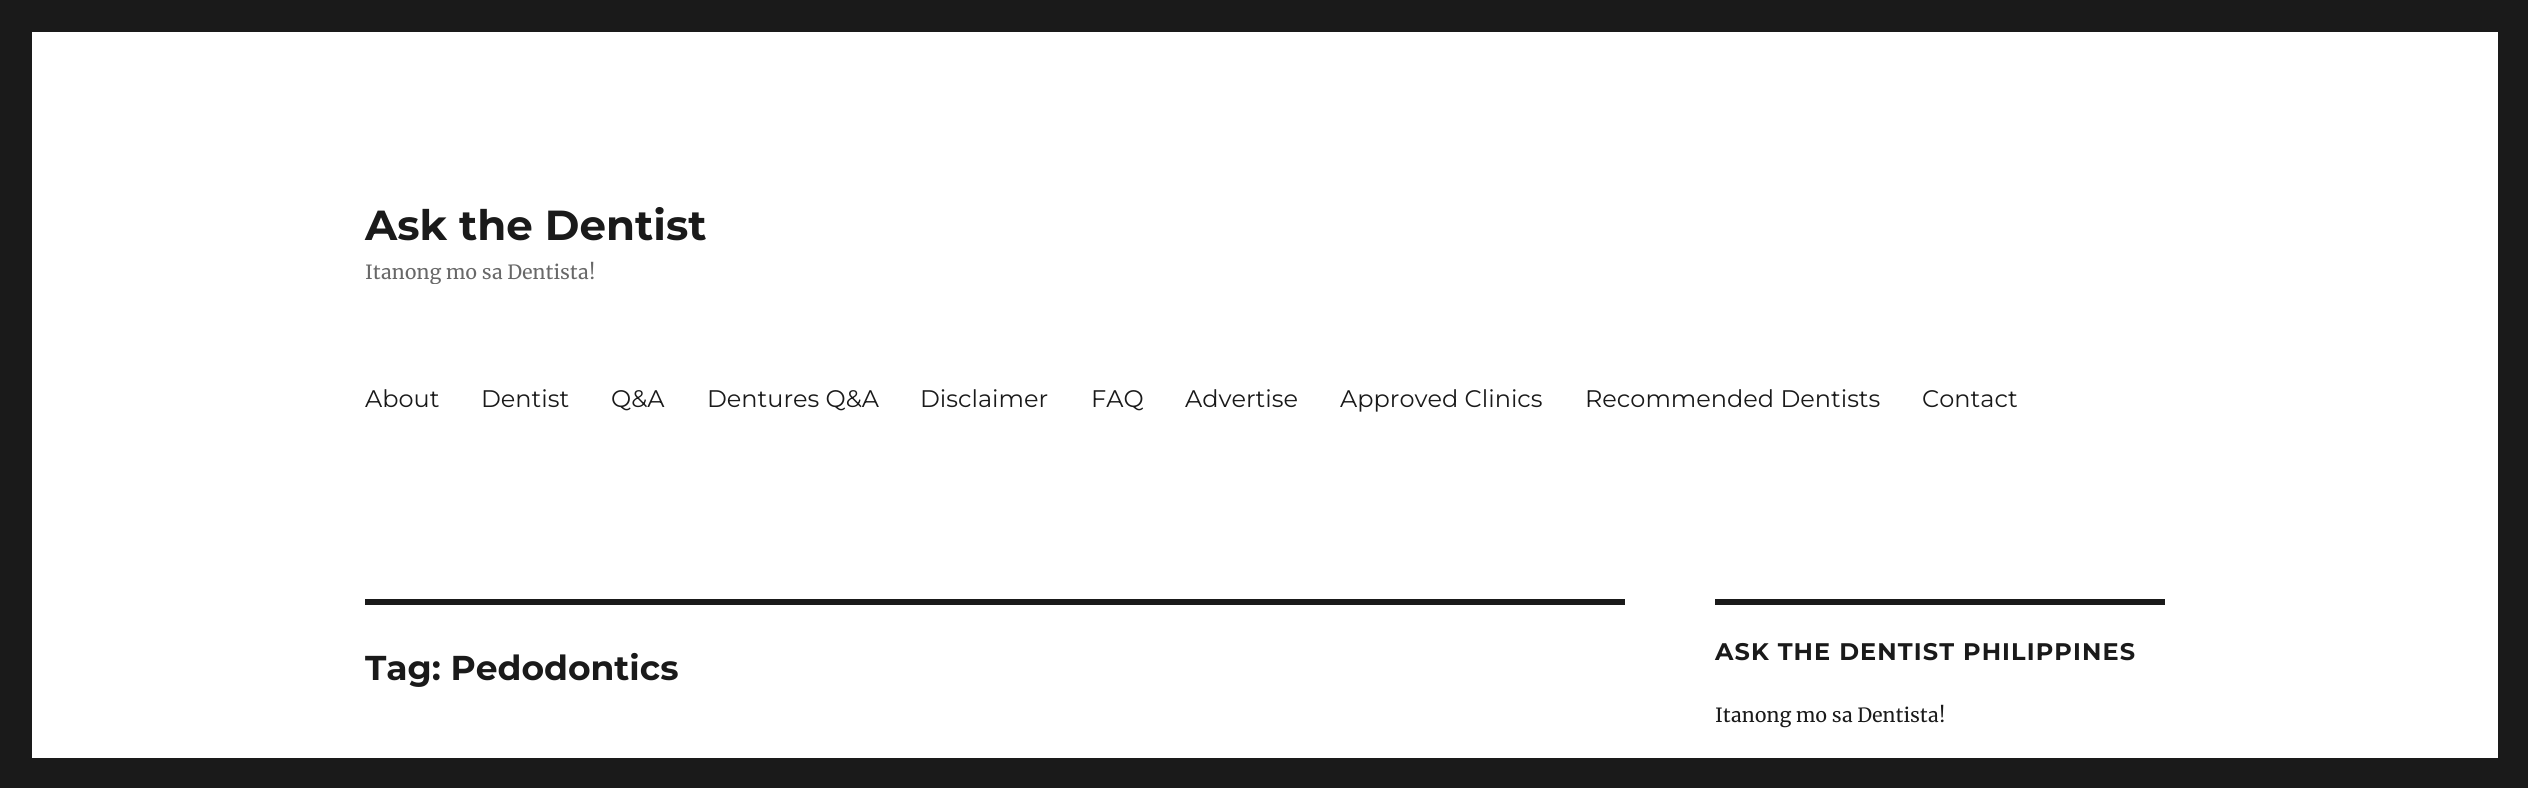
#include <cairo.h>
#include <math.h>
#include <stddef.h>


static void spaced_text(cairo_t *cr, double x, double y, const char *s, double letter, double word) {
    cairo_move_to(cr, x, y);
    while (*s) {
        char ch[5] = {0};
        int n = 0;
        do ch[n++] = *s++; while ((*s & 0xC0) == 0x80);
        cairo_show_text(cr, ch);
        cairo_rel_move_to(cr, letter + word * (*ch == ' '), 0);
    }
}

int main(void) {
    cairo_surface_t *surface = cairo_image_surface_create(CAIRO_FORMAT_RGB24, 2528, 788);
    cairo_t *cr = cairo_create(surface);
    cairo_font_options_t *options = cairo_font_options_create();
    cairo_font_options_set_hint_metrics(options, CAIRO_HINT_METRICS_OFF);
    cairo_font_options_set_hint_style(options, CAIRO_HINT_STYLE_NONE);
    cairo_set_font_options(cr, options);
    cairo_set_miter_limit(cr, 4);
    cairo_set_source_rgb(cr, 0.102, 0.102, 0.102);
    cairo_paint(cr);
    cairo_set_source_rgb(cr, 1, 1, 1);
    cairo_rectangle(cr, 32, 32, 2466, 726);
    cairo_fill(cr);
    cairo_select_font_face(cr, "Montserrat Thin", CAIRO_FONT_SLANT_NORMAL, CAIRO_FONT_WEIGHT_NORMAL);
    cairo_set_font_size(cr, 42);
    cairo_set_source_rgb(cr, 0.102, 0.102, 0.102);
    cairo_move_to(cr, 365, 240);
    cairo_show_text(cr, "Ask the Dentist");
    cairo_save(cr);
    cairo_rectangle(cr, 365, 200, 342, 84);
    cairo_clip(cr);
    cairo_select_font_face(cr, "Merriweather", CAIRO_FONT_SLANT_NORMAL, CAIRO_FONT_WEIGHT_NORMAL);
    cairo_set_font_size(cr, 19.5);
    cairo_set_source_rgb(cr, 0.408, 0.408, 0.408);
    cairo_move_to(cr, 365, 279);
    cairo_show_text(cr, "Itanong mo sa Dentista!");
    cairo_restore(cr);
    cairo_select_font_face(cr, "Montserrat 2 Thin", CAIRO_FONT_SLANT_NORMAL, CAIRO_FONT_WEIGHT_NORMAL);
    cairo_set_font_size(cr, 24);
    cairo_move_to(cr, 365, 407);
    cairo_show_text(cr, "About");
    cairo_move_to(cr, 481, 407);
    cairo_show_text(cr, "Dentist");
    cairo_move_to(cr, 611, 407);
    cairo_show_text(cr, "Q&A");
    cairo_move_to(cr, 707, 407);
    cairo_show_text(cr, "Dentures Q&A");
    cairo_move_to(cr, 920, 407);
    cairo_show_text(cr, "Disclaimer");
    cairo_move_to(cr, 1091, 407);
    cairo_show_text(cr, "FAQ");
    cairo_move_to(cr, 1185, 407);
    cairo_show_text(cr, "Advertise");
    cairo_move_to(cr, 1340, 407);
    cairo_show_text(cr, "Approved Clinics");
    cairo_move_to(cr, 1585, 407);
    cairo_show_text(cr, "Recommended Dentists");
    cairo_move_to(cr, 1922, 407);
    cairo_show_text(cr, "Contact");
    cairo_rectangle(cr, 365, 599, 1260, 6);
    cairo_fill(cr);
    cairo_select_font_face(cr, "Montserrat Thin", CAIRO_FONT_SLANT_NORMAL, CAIRO_FONT_WEIGHT_NORMAL);
    cairo_set_font_size(cr, 34.5);
    cairo_move_to(cr, 365, 680);
    cairo_show_text(cr, "Tag: Pedodontics");
    cairo_rectangle(cr, 1715, 599, 450, 6);
    cairo_fill(cr);
    cairo_set_font_size(cr, 24);
    spaced_text(cr, 1715, 660, "ASK THE DENTIST PHILIPPINES", 1.1, 0);
    cairo_select_font_face(cr, "Merriweather", CAIRO_FONT_SLANT_NORMAL, CAIRO_FONT_WEIGHT_NORMAL);
    cairo_set_font_size(cr, 19.5);
    cairo_move_to(cr, 1715, 722);
    cairo_show_text(cr, "Itanong mo sa Dentista!");
    cairo_surface_write_to_png(surface, "page.png");
    cairo_font_options_destroy(options);
    cairo_destroy(cr);
    cairo_surface_destroy(surface);
    return 0;
}
